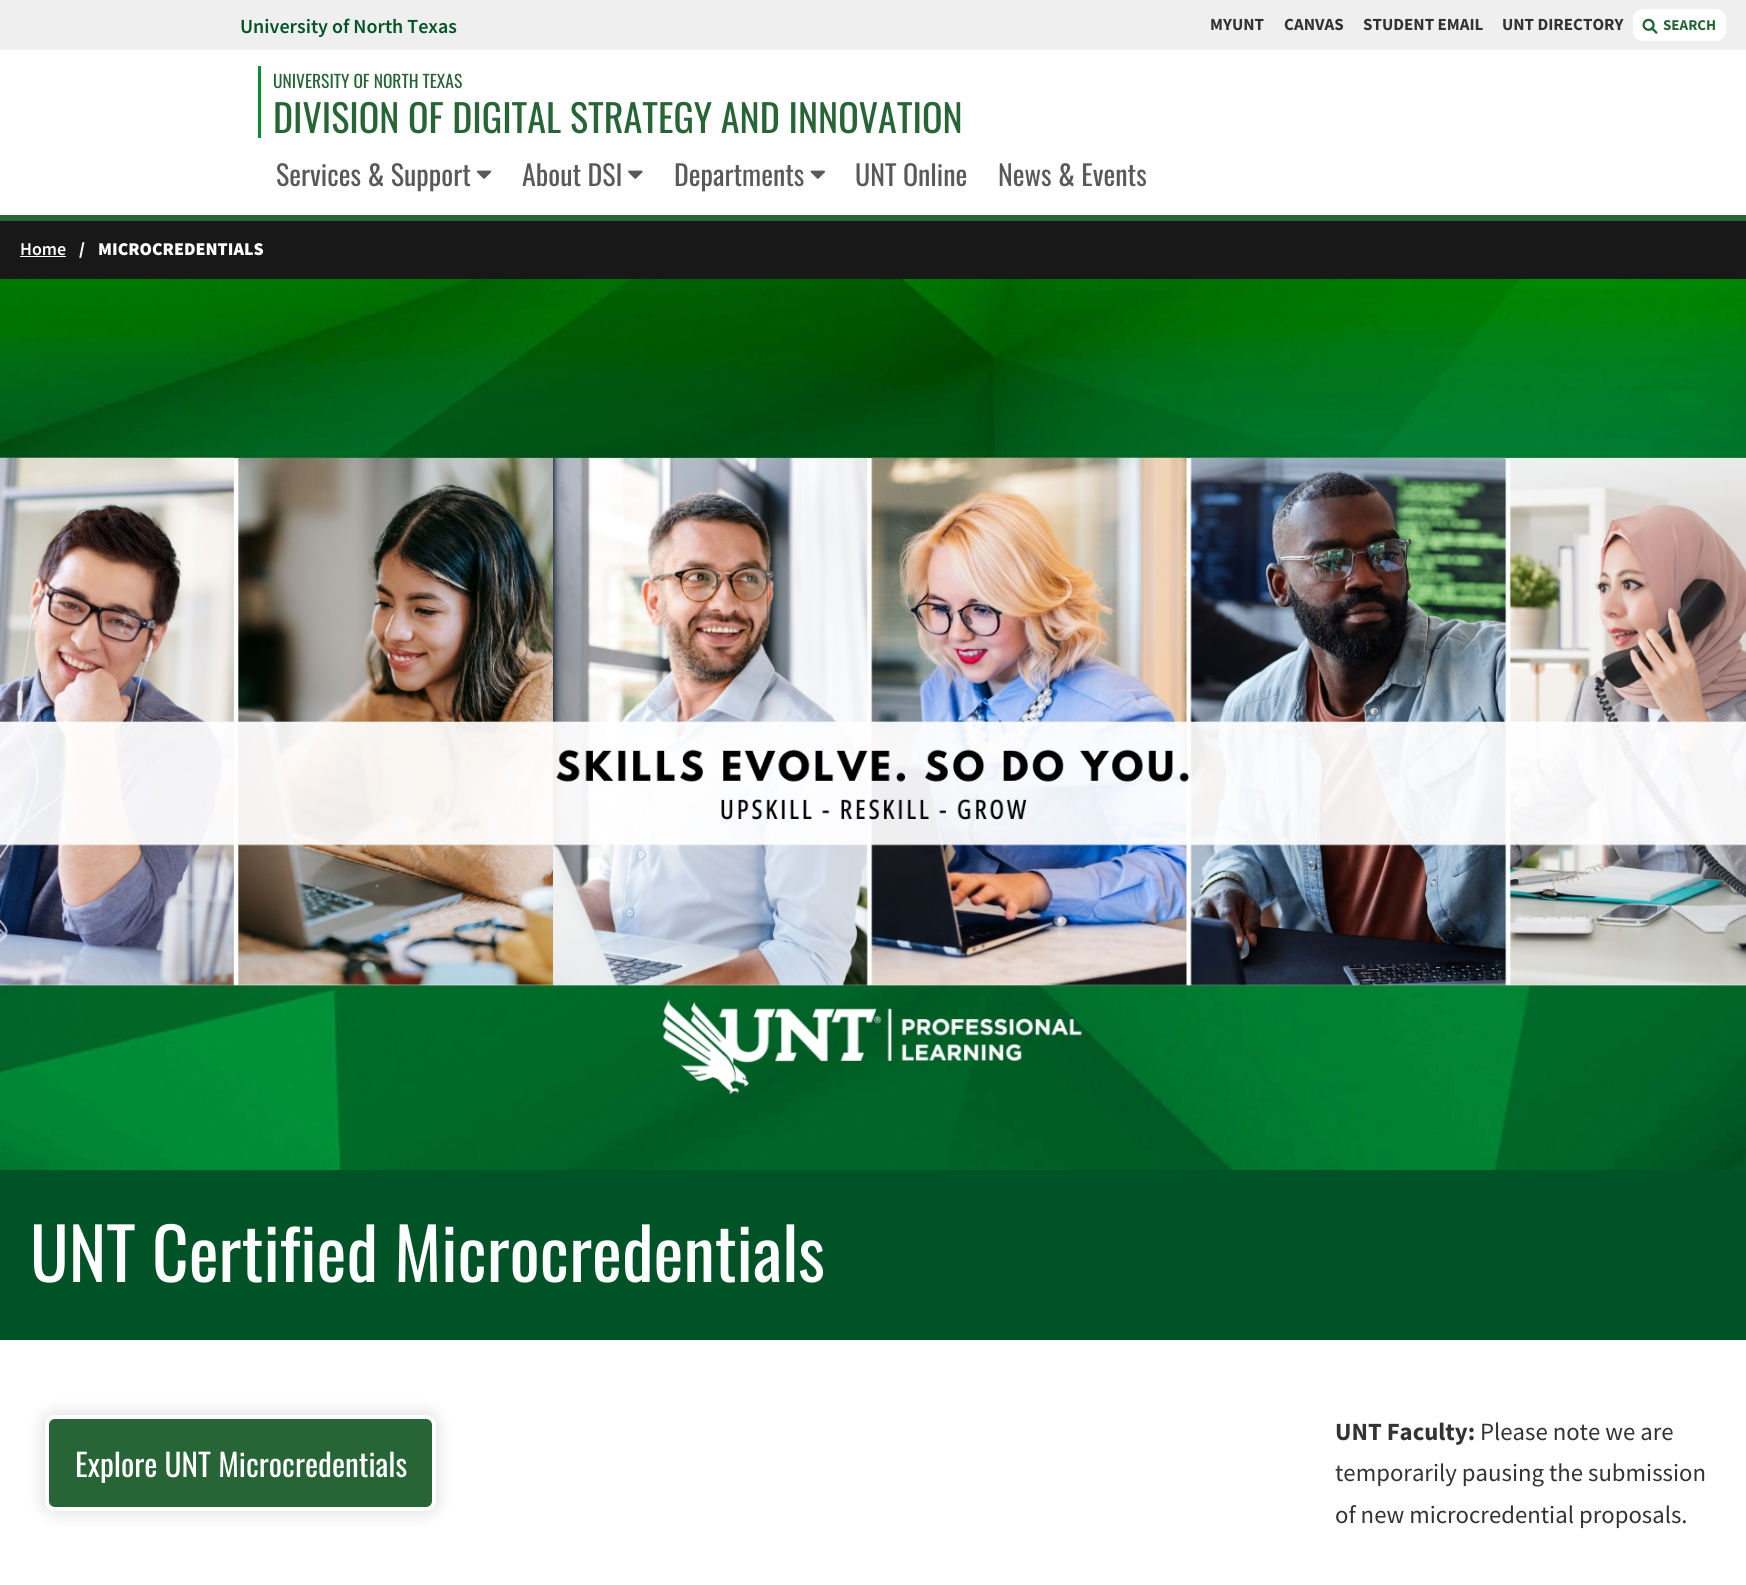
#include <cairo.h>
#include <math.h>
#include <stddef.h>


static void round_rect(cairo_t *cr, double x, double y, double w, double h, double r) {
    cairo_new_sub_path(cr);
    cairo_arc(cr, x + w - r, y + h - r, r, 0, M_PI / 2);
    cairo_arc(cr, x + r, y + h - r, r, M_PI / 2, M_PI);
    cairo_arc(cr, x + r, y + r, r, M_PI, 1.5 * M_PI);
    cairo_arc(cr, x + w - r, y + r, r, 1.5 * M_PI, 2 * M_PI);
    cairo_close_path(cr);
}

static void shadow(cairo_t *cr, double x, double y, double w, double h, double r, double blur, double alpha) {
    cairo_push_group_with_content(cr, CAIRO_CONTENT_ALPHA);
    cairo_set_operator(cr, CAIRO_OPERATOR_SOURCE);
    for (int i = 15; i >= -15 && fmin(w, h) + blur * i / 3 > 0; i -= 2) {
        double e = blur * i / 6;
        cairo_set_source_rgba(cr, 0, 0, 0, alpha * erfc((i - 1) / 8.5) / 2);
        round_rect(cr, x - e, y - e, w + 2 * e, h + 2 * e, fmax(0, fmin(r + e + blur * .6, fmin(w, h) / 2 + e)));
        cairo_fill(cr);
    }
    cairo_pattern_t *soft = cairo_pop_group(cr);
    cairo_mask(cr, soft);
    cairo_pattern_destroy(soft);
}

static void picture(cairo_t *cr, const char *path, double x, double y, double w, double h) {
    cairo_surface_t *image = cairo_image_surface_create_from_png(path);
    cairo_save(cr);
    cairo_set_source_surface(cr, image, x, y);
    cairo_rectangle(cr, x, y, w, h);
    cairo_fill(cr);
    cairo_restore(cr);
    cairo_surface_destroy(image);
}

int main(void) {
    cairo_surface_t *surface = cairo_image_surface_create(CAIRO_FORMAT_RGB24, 1746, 1585);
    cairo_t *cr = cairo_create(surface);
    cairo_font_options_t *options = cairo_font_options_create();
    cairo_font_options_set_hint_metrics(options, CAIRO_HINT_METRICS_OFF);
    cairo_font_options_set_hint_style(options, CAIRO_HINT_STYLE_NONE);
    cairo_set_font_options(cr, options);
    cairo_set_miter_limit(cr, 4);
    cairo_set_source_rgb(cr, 1, 1, 1);
    cairo_paint(cr);
    cairo_set_source_rgb(cr, 0.937, 0.937, 0.937);
    cairo_rectangle(cr, 0, 0, 1746, 50);
    cairo_fill(cr);
    cairo_select_font_face(cr, "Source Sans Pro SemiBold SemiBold", CAIRO_FONT_SLANT_NORMAL, CAIRO_FONT_WEIGHT_NORMAL);
    cairo_set_font_size(cr, 20);
    cairo_set_source_rgb(cr, 0, 0.325, 0.149);
    cairo_move_to(cr, 240, 33);
    cairo_show_text(cr, "University of North Texas");
    cairo_select_font_face(cr, "Source Sans Pro", CAIRO_FONT_SLANT_NORMAL, CAIRO_FONT_WEIGHT_BOLD);
    cairo_set_font_size(cr, 17);
    cairo_set_source_rgb(cr, 0.2, 0.2, 0.2);
    cairo_move_to(cr, 1210, 30);
    cairo_show_text(cr, "MYUNT");
    cairo_move_to(cr, 1284, 30);
    cairo_show_text(cr, "CANVAS");
    cairo_move_to(cr, 1363, 30);
    cairo_show_text(cr, "STUDENT EMAIL");
    cairo_move_to(cr, 1502, 30);
    cairo_show_text(cr, "UNT DIRECTORY");
    cairo_set_source_rgb(cr, 1, 1, 1);
    round_rect(cr, 1633, 9, 93, 32, 10);
    cairo_fill(cr);
    picture(cr, "img1.png", 1642, 18, 16, 16);
    cairo_set_font_size(cr, 15);
    cairo_set_source_rgb(cr, 0.153, 0.392, 0.212);
    cairo_move_to(cr, 1663, 30);
    cairo_show_text(cr, "SEARCH");
    cairo_rectangle(cr, 0, 215, 1746, 6);
    cairo_fill(cr);
    cairo_set_source_rgb(cr, 0.02, 0.565, 0.2);
    cairo_rectangle(cr, 258, 66, 3, 72);
    cairo_fill(cr);
    cairo_select_font_face(cr, "Oswald", CAIRO_FONT_SLANT_NORMAL, CAIRO_FONT_WEIGHT_NORMAL);
    cairo_set_font_size(cr, 17.5);
    cairo_set_source_rgb(cr, 0.153, 0.392, 0.212);
    cairo_move_to(cr, 273, 88);
    cairo_show_text(cr, "UNIVERSITY OF NORTH TEXAS");
    cairo_set_font_size(cr, 38.1);
    cairo_move_to(cr, 273, 133);
    cairo_show_text(cr, "DIVISION OF DIGITAL STRATEGY AND INNOVATION");
    cairo_set_font_size(cr, 28);
    cairo_set_source_rgb(cr, 0.349, 0.349, 0.349);
    cairo_move_to(cr, 276, 186);
    cairo_show_text(cr, "Services & Support");
    picture(cr, "img2.png", 476, 170, 16, 9);
    cairo_move_to(cr, 522, 186);
    cairo_show_text(cr, "About DSI");
    picture(cr, "img3.png", 628, 170, 15, 9);
    cairo_move_to(cr, 674, 186);
    cairo_show_text(cr, "Departments");
    picture(cr, "img4.png", 810, 170, 15, 9);
    cairo_move_to(cr, 855, 186);
    cairo_show_text(cr, "UNT Online");
    cairo_move_to(cr, 998, 186);
    cairo_show_text(cr, "News & Events");
    cairo_set_source_rgb(cr, 0.094, 0.094, 0.094);
    cairo_rectangle(cr, 0, 221, 1746, 58);
    cairo_fill(cr);
    cairo_select_font_face(cr, "Source Sans Pro SemiBold SemiBold", CAIRO_FONT_SLANT_NORMAL, CAIRO_FONT_WEIGHT_NORMAL);
    cairo_set_font_size(cr, 18);
    cairo_set_source_rgb(cr, 1, 1, 1);
    cairo_move_to(cr, 20, 255);
    cairo_show_text(cr, "Home");
    cairo_rectangle(cr, 20, 256, 46, 1);
    cairo_fill(cr);
    cairo_select_font_face(cr, "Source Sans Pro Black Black", CAIRO_FONT_SLANT_NORMAL, CAIRO_FONT_WEIGHT_NORMAL);
    cairo_move_to(cr, 79, 255);
    cairo_show_text(cr, "/");
    cairo_move_to(cr, 98, 255);
    cairo_show_text(cr, "MICROCREDENTIALS");
    picture(cr, "img5.png", 0, 278, 1746, 892);
    cairo_set_source_rgb(cr, 0, 0.325, 0.149);
    cairo_rectangle(cr, 0, 1170, 1746, 170);
    cairo_fill(cr);
    cairo_select_font_face(cr, "Oswald", CAIRO_FONT_SLANT_NORMAL, CAIRO_FONT_WEIGHT_NORMAL);
    cairo_set_font_size(cr, 71.2);
    cairo_set_source_rgb(cr, 1, 1, 1);
    cairo_move_to(cr, 30, 1282);
    cairo_show_text(cr, "UNT Certified Microcredentials");
    cairo_set_source_rgb(cr, 0, 0, 0);
    shadow(cr, 45, 1415, 391, 96, 10, 9.5, 0.15);
    cairo_set_source_rgb(cr, 0.153, 0.392, 0.212);
    round_rect(cr, 47, 1417, 387, 92, 8);
    cairo_fill_preserve(cr);
    cairo_set_source_rgb(cr, 1, 1, 1);
    cairo_set_line_width(cr, 4);
    cairo_stroke(cr);
    cairo_set_font_size(cr, 31.25);
    cairo_move_to(cr, 75, 1477);
    cairo_show_text(cr, "Explore UNT Microcredentials");
    cairo_select_font_face(cr, "Source Sans Pro", CAIRO_FONT_SLANT_NORMAL, CAIRO_FONT_WEIGHT_BOLD);
    cairo_set_font_size(cr, 24.75);
    cairo_set_source_rgb(cr, 0.2, 0.2, 0.2);
    cairo_move_to(cr, 1335, 1440);
    cairo_show_text(cr, "UNT Faculty:");
    cairo_select_font_face(cr, "Source Sans Pro", CAIRO_FONT_SLANT_NORMAL, CAIRO_FONT_WEIGHT_NORMAL);
    cairo_move_to(cr, 1480, 1440);
    cairo_show_text(cr, "Please note we are");
    cairo_move_to(cr, 1335, 1481);
    cairo_show_text(cr, "temporarily pausing the submission");
    cairo_move_to(cr, 1335, 1523);
    cairo_show_text(cr, "of new microcredential proposals.");
    cairo_surface_write_to_png(surface, "page.png");
    cairo_font_options_destroy(options);
    cairo_destroy(cr);
    cairo_surface_destroy(surface);
    return 0;
}
